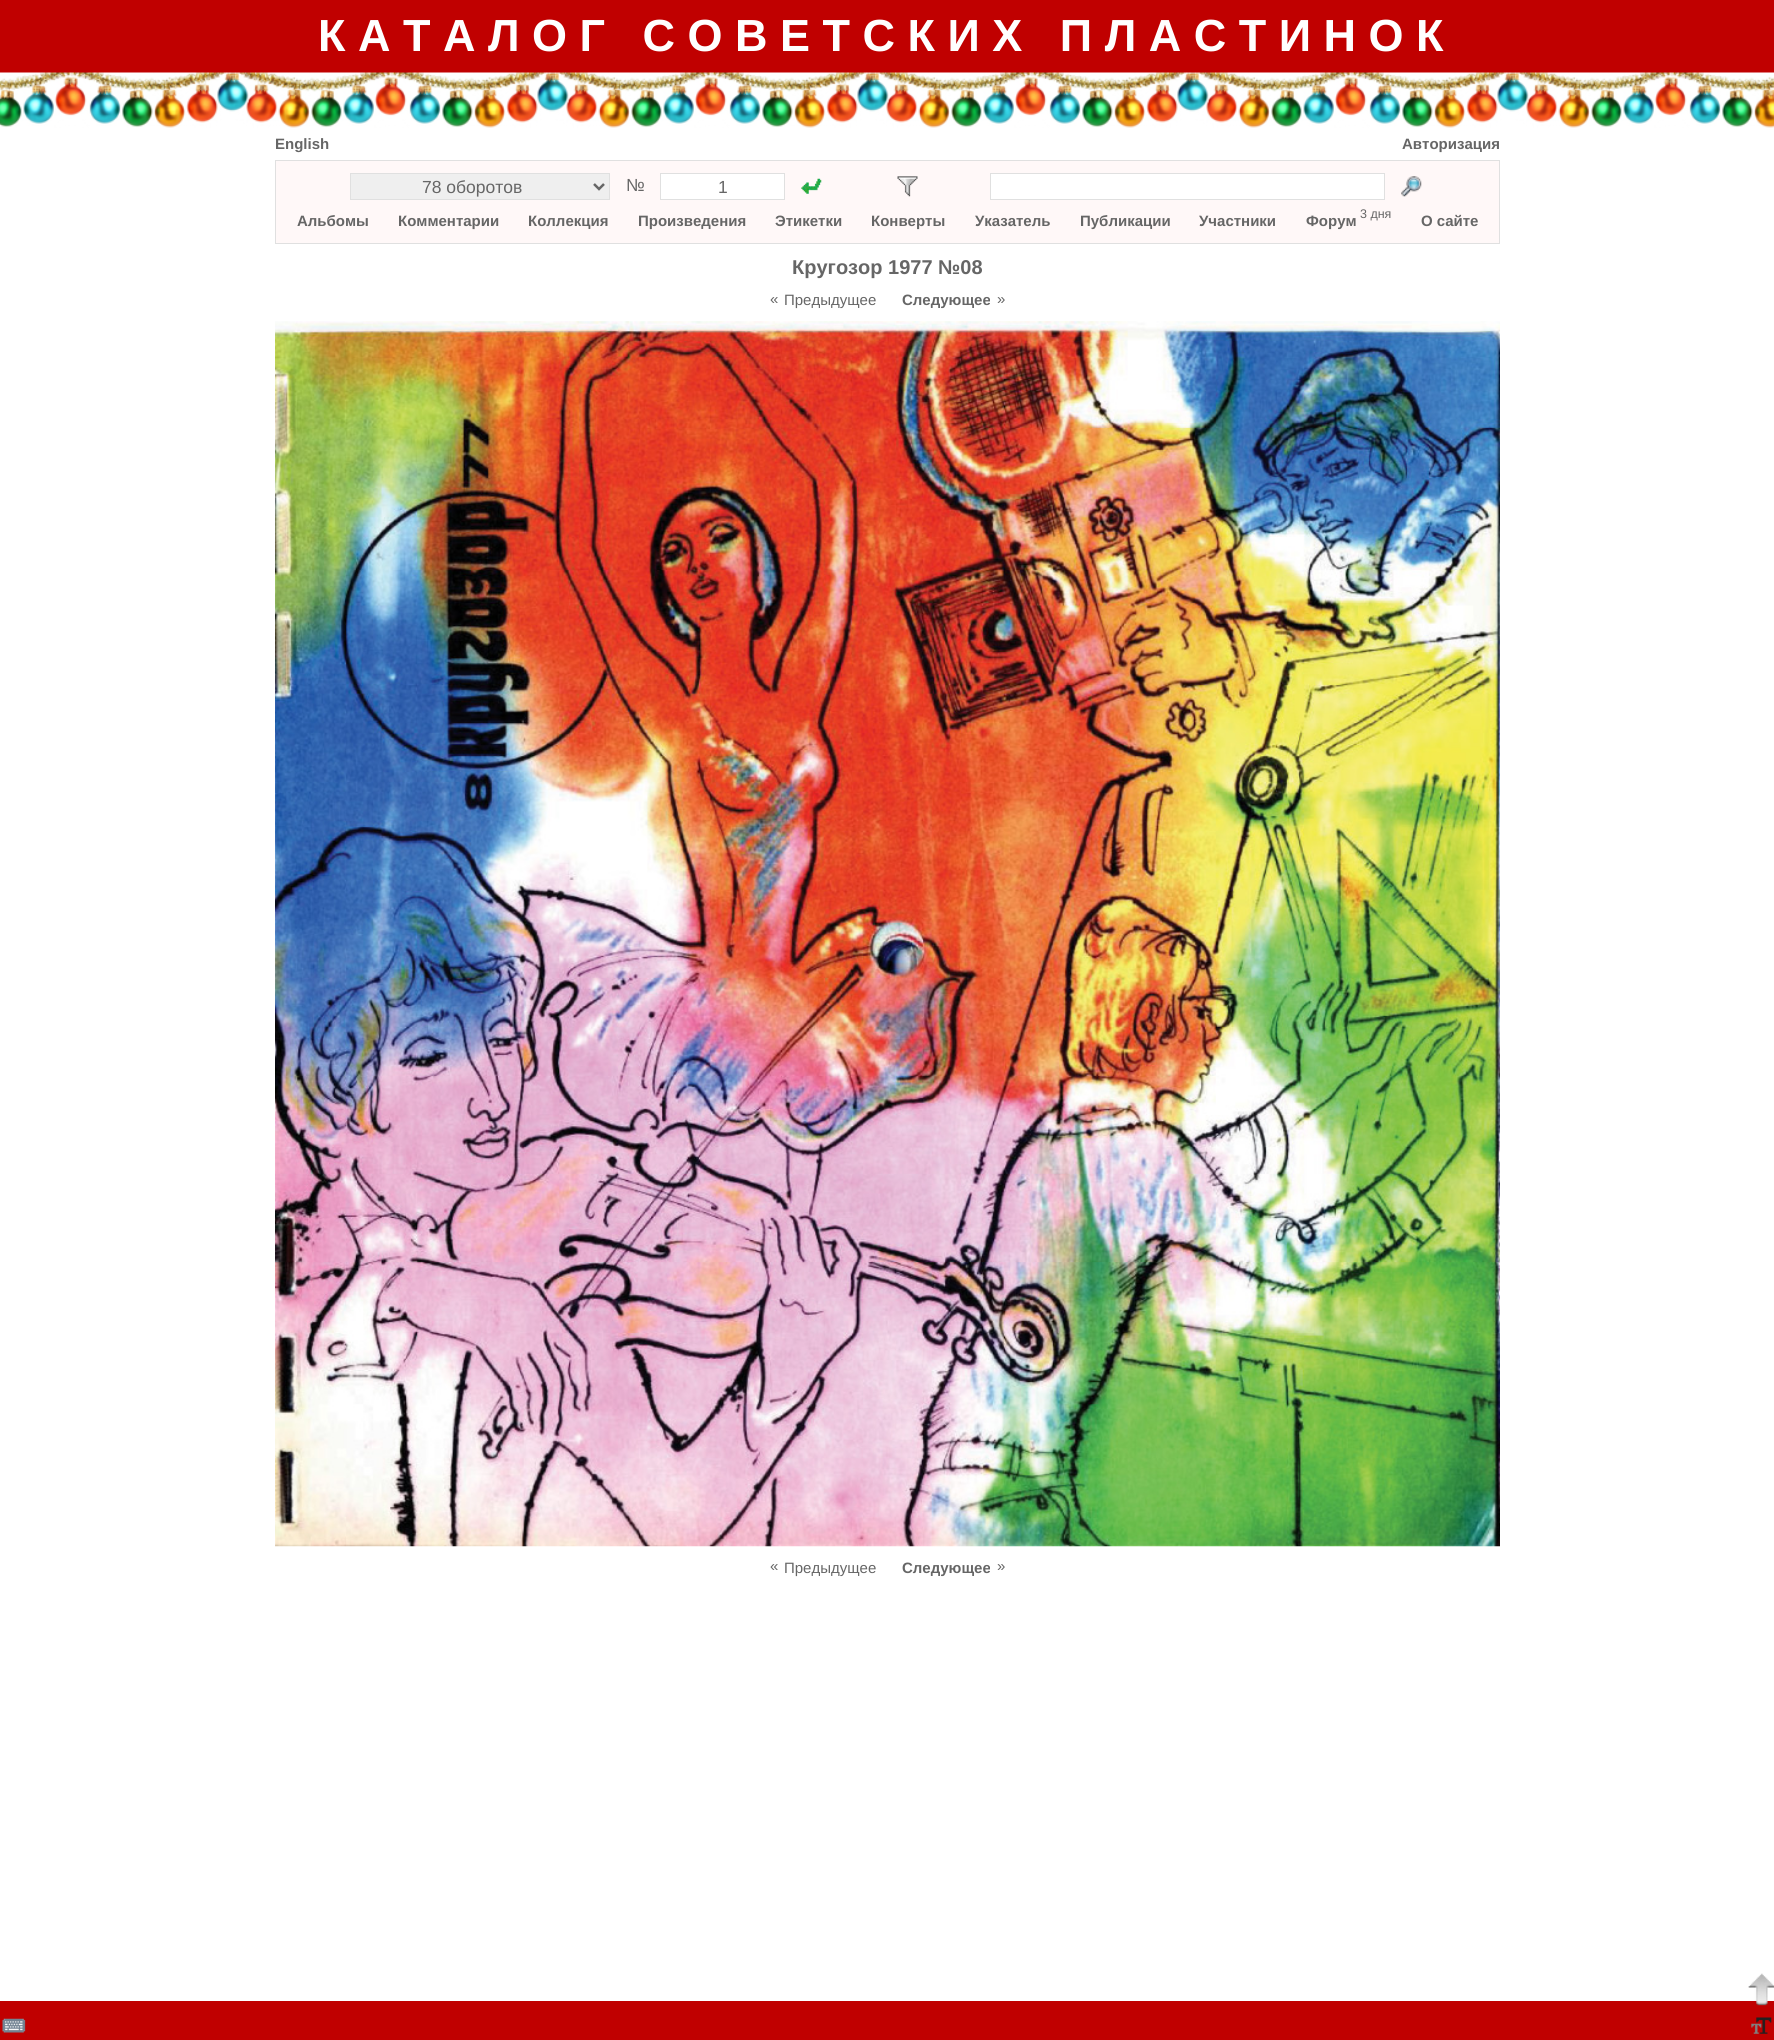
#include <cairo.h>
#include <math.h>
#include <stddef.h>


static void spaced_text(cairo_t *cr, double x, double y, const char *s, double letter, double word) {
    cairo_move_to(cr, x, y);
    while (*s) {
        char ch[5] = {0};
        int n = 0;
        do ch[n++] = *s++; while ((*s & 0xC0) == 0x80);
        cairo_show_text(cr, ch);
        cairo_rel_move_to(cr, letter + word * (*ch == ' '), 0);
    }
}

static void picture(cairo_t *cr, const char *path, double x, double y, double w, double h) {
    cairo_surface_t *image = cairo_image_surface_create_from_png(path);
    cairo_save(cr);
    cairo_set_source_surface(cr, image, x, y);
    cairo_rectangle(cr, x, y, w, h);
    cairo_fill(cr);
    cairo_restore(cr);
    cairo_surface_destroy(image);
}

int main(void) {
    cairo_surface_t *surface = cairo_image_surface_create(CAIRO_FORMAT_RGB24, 1774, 2040);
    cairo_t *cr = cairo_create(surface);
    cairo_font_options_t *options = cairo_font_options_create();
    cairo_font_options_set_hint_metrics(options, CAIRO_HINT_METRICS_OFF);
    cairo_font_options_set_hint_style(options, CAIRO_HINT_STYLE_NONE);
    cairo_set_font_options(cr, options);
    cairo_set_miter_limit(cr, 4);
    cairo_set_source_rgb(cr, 1, 1, 1);
    cairo_paint(cr);
    cairo_set_source_rgb(cr, 0.753, 0, 0);
    cairo_rectangle(cr, 0, 0, 1774, 73);
    cairo_fill(cr);
    cairo_select_font_face(cr, "Liberation Sans", CAIRO_FONT_SLANT_NORMAL, CAIRO_FONT_WEIGHT_BOLD);
    cairo_set_font_size(cr, 45);
    cairo_set_source_rgb(cr, 1, 1, 1);
    spaced_text(cr, 318, 51, "КАТАЛОГ СОВЕТСКИХ ПЛАСТИНОК", 12.5, 0);
    picture(cr, "img1.png", 0, 72, 1774, 56);
    cairo_set_font_size(cr, 15);
    cairo_set_source_rgb(cr, 0.4, 0.4, 0.4);
    cairo_move_to(cr, 275, 149);
    cairo_show_text(cr, "English");
    cairo_move_to(cr, 1402, 149);
    cairo_show_text(cr, "Авторизация");
    cairo_set_source_rgb(cr, 1, 0.969, 0.969);
    cairo_rectangle(cr, 275.5, 160.5, 1224, 83);
    cairo_fill_preserve(cr);
    cairo_set_source_rgb(cr, 0.878, 0.878, 0.878);
    cairo_set_line_width(cr, 1);
    cairo_stroke(cr);
    cairo_set_source_rgb(cr, 0.937, 0.937, 0.937);
    cairo_rectangle(cr, 350.5, 173.5, 259, 26);
    cairo_fill_preserve(cr);
    cairo_set_source_rgb(cr, 0.878, 0.878, 0.878);
    cairo_stroke(cr);
    cairo_new_path(cr);
    cairo_move_to(cr, 594, 184);
    cairo_line_to(cr, 599, 189);
    cairo_line_to(cr, 604, 184);
    cairo_set_source_rgb(cr, 0.4, 0.4, 0.4);
    cairo_set_line_width(cr, 2.5);
    cairo_stroke(cr);
    cairo_select_font_face(cr, "Liberation Sans", CAIRO_FONT_SLANT_NORMAL, CAIRO_FONT_WEIGHT_NORMAL);
    cairo_set_font_size(cr, 17.5);
    cairo_move_to(cr, 422, 193);
    cairo_show_text(cr, "78 оборотов");
    cairo_move_to(cr, 626, 191);
    cairo_show_text(cr, "№");
    cairo_set_source_rgb(cr, 1, 1, 1);
    cairo_rectangle(cr, 660.5, 173.5, 124, 26);
    cairo_fill_preserve(cr);
    cairo_set_source_rgb(cr, 0.878, 0.878, 0.878);
    cairo_set_line_width(cr, 1);
    cairo_stroke(cr);
    cairo_set_source_rgb(cr, 0.4, 0.4, 0.4);
    cairo_move_to(cr, 718, 193);
    cairo_show_text(cr, "1");
    picture(cr, "img2.png", 801, 178, 21, 16);
    picture(cr, "img3.png", 897, 176, 21, 21);
    cairo_set_source_rgb(cr, 1, 1, 1);
    cairo_rectangle(cr, 990.5, 173.5, 394, 26);
    cairo_fill_preserve(cr);
    cairo_set_source_rgb(cr, 0.878, 0.878, 0.878);
    cairo_stroke(cr);
    picture(cr, "img4.png", 1401, 176, 21, 21);
    cairo_select_font_face(cr, "Liberation Sans", CAIRO_FONT_SLANT_NORMAL, CAIRO_FONT_WEIGHT_BOLD);
    cairo_set_font_size(cr, 15);
    cairo_set_source_rgb(cr, 0.4, 0.4, 0.4);
    cairo_move_to(cr, 297, 226);
    cairo_show_text(cr, "Альбомы");
    cairo_move_to(cr, 398, 226);
    cairo_show_text(cr, "Комментарии");
    cairo_move_to(cr, 528, 226);
    cairo_show_text(cr, "Коллекция");
    cairo_move_to(cr, 638, 226);
    cairo_show_text(cr, "Произведения");
    cairo_move_to(cr, 775, 226);
    cairo_show_text(cr, "Этикетки");
    cairo_move_to(cr, 871, 226);
    cairo_show_text(cr, "Конверты");
    cairo_move_to(cr, 975, 226);
    cairo_show_text(cr, "Указатель");
    cairo_move_to(cr, 1080, 226);
    cairo_show_text(cr, "Публикации");
    cairo_move_to(cr, 1199, 226);
    cairo_show_text(cr, "Участники");
    cairo_move_to(cr, 1306, 226);
    cairo_show_text(cr, "Форум");
    cairo_select_font_face(cr, "Liberation Sans", CAIRO_FONT_SLANT_NORMAL, CAIRO_FONT_WEIGHT_NORMAL);
    cairo_set_font_size(cr, 12.5);
    cairo_move_to(cr, 1360, 218);
    cairo_show_text(cr, "3 дня");
    cairo_select_font_face(cr, "Liberation Sans", CAIRO_FONT_SLANT_NORMAL, CAIRO_FONT_WEIGHT_BOLD);
    cairo_set_font_size(cr, 15);
    cairo_move_to(cr, 1421, 226);
    cairo_show_text(cr, "О сайте");
    cairo_set_font_size(cr, 20);
    cairo_move_to(cr, 792, 274);
    cairo_show_text(cr, "Кругозор 1977 №08");
    cairo_select_font_face(cr, "Liberation Sans", CAIRO_FONT_SLANT_NORMAL, CAIRO_FONT_WEIGHT_NORMAL);
    cairo_set_font_size(cr, 15);
    cairo_move_to(cr, 770, 304);
    cairo_show_text(cr, "«");
    cairo_move_to(cr, 784, 305);
    cairo_show_text(cr, "Предыдущее");
    cairo_select_font_face(cr, "Liberation Sans", CAIRO_FONT_SLANT_NORMAL, CAIRO_FONT_WEIGHT_BOLD);
    cairo_move_to(cr, 902, 305);
    cairo_show_text(cr, "Следующее");
    cairo_select_font_face(cr, "Liberation Sans", CAIRO_FONT_SLANT_NORMAL, CAIRO_FONT_WEIGHT_NORMAL);
    cairo_move_to(cr, 997, 304);
    cairo_show_text(cr, "»");
    picture(cr, "img5.png", 275, 321, 1225, 1226);
    cairo_move_to(cr, 770, 1571);
    cairo_show_text(cr, "«");
    cairo_move_to(cr, 784, 1573);
    cairo_show_text(cr, "Предыдущее");
    cairo_select_font_face(cr, "Liberation Sans", CAIRO_FONT_SLANT_NORMAL, CAIRO_FONT_WEIGHT_BOLD);
    cairo_move_to(cr, 902, 1573);
    cairo_show_text(cr, "Следующее");
    cairo_select_font_face(cr, "Liberation Sans", CAIRO_FONT_SLANT_NORMAL, CAIRO_FONT_WEIGHT_NORMAL);
    cairo_move_to(cr, 997, 1571);
    cairo_show_text(cr, "»");
    cairo_set_source_rgb(cr, 0.753, 0, 0);
    cairo_rectangle(cr, 0, 2001, 1774, 39);
    cairo_fill(cr);
    picture(cr, "img6.png", 1748, 1973, 26, 33);
    picture(cr, "img7.png", 2, 2018, 24, 15);
    picture(cr, "img8.png", 1751, 2017, 21, 17);
    cairo_surface_write_to_png(surface, "page.png");
    cairo_font_options_destroy(options);
    cairo_destroy(cr);
    cairo_surface_destroy(surface);
    return 0;
}
